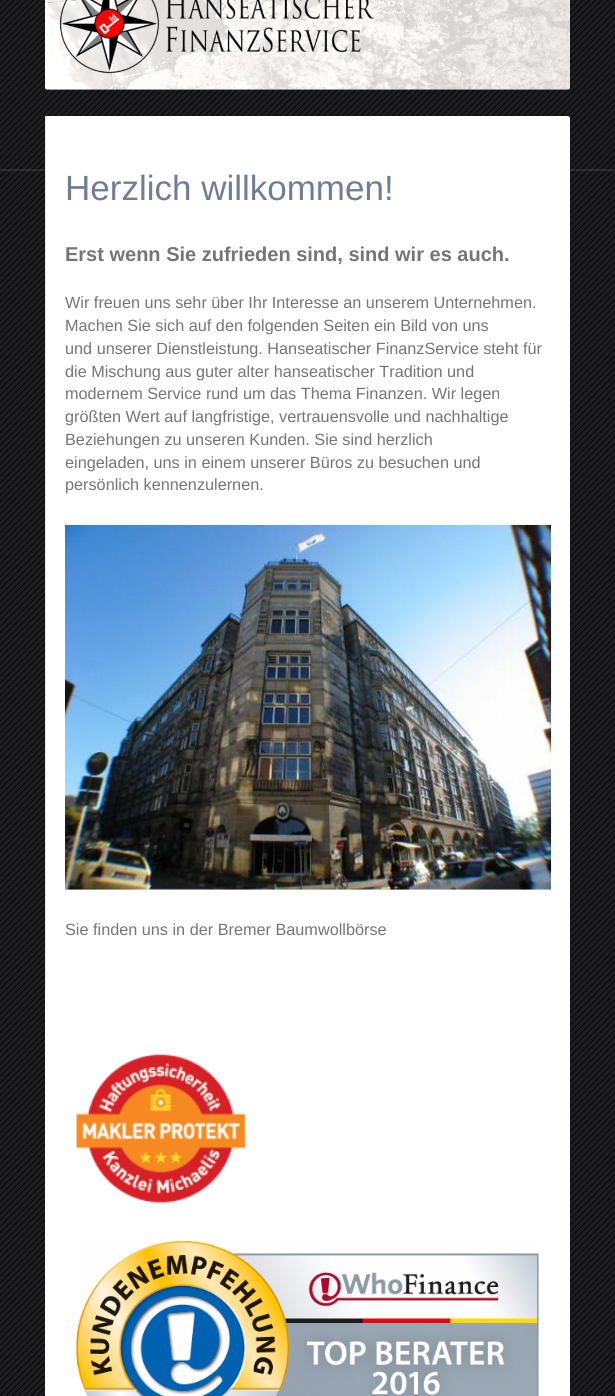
#include <cairo.h>
#include <math.h>
#include <stddef.h>


static void round_rect(cairo_t *cr, double x, double y, double w, double h, double r) {
    cairo_new_sub_path(cr);
    cairo_arc(cr, x + w - r, y + h - r, r, 0, M_PI / 2);
    cairo_arc(cr, x + r, y + h - r, r, M_PI / 2, M_PI);
    cairo_arc(cr, x + r, y + r, r, M_PI, 1.5 * M_PI);
    cairo_arc(cr, x + w - r, y + r, r, 1.5 * M_PI, 2 * M_PI);
    cairo_close_path(cr);
}

static void shadow(cairo_t *cr, double x, double y, double w, double h, double r, double blur, double alpha) {
    cairo_push_group_with_content(cr, CAIRO_CONTENT_ALPHA);
    cairo_set_operator(cr, CAIRO_OPERATOR_SOURCE);
    for (int i = 15; i >= -15 && fmin(w, h) + blur * i / 3 > 0; i -= 2) {
        double e = blur * i / 6;
        cairo_set_source_rgba(cr, 0, 0, 0, alpha * erfc((i - 1) / 8.5) / 2);
        round_rect(cr, x - e, y - e, w + 2 * e, h + 2 * e, fmax(0, fmin(r + e + blur * .6, fmin(w, h) / 2 + e)));
        cairo_fill(cr);
    }
    cairo_pattern_t *soft = cairo_pop_group(cr);
    cairo_mask(cr, soft);
    cairo_pattern_destroy(soft);
}

static void picture(cairo_t *cr, const char *path, double x, double y, double w, double h) {
    cairo_surface_t *image = cairo_image_surface_create_from_png(path);
    cairo_save(cr);
    cairo_set_source_surface(cr, image, x, y);
    cairo_rectangle(cr, x, y, w, h);
    cairo_fill(cr);
    cairo_restore(cr);
    cairo_surface_destroy(image);
}

int main(void) {
    cairo_surface_t *surface = cairo_image_surface_create(CAIRO_FORMAT_RGB24, 615, 1396);
    cairo_t *cr = cairo_create(surface);
    cairo_font_options_t *options = cairo_font_options_create();
    cairo_font_options_set_hint_metrics(options, CAIRO_HINT_METRICS_OFF);
    cairo_font_options_set_hint_style(options, CAIRO_HINT_STYLE_NONE);
    cairo_set_font_options(cr, options);
    cairo_set_miter_limit(cr, 4);
    cairo_set_source_rgb(cr, 0.118, 0.118, 0.133);
    cairo_paint(cr);
    picture(cr, "img1.png", 0, 0, 615, 1396);
    cairo_save(cr);
    cairo_set_fill_rule(cr, CAIRO_FILL_RULE_EVEN_ODD);
    cairo_new_path(cr);
    cairo_move_to(cr, 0, 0);
    cairo_line_to(cr, 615, 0);
    cairo_line_to(cr, 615, 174);
    cairo_line_to(cr, 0, 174);
    cairo_close_path(cr);
    cairo_move_to(cr, 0, -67);
    cairo_line_to(cr, 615, -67);
    cairo_line_to(cr, 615, 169);
    cairo_line_to(cr, 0, 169);
    cairo_close_path(cr);
    cairo_clip(cr);
    cairo_set_source_rgb(cr, 1, 1, 1);
    shadow(cr, 0, -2, 615, 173, 0, 0.5, 0.1);
    cairo_restore(cr);
    picture(cr, "img2.png", 45, 0, 525, 90);
    cairo_set_source_rgb(cr, 1, 1, 1);
    round_rect(cr, 45, 116, 525, 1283, 2.5);
    cairo_fill(cr);
    cairo_set_source_rgb(cr, 0.902, 0.902, 0.902);
    cairo_rectangle(cr, 45, 116, 1, 873);
    cairo_fill(cr);
    cairo_select_font_face(cr, "Liberation Sans", CAIRO_FONT_SLANT_NORMAL, CAIRO_FONT_WEIGHT_NORMAL);
    cairo_set_font_size(cr, 35);
    cairo_set_source_rgb(cr, 0.443, 0.49, 0.592);
    cairo_move_to(cr, 65, 200);
    cairo_show_text(cr, "Herzlich willkommen!");
    cairo_select_font_face(cr, "Liberation Sans", CAIRO_FONT_SLANT_NORMAL, CAIRO_FONT_WEIGHT_BOLD);
    cairo_set_font_size(cr, 20);
    cairo_set_source_rgb(cr, 0.459, 0.459, 0.459);
    cairo_move_to(cr, 65, 261);
    cairo_show_text(cr, "Erst wenn Sie zufrieden sind, sind wir es auch.");
    cairo_select_font_face(cr, "Liberation Sans", CAIRO_FONT_SLANT_NORMAL, CAIRO_FONT_WEIGHT_NORMAL);
    cairo_set_font_size(cr, 16.25);
    cairo_move_to(cr, 65, 308);
    cairo_show_text(cr, "Wir freuen uns sehr über Ihr Interesse an unserem Unternehmen.");
    cairo_move_to(cr, 65, 331);
    cairo_show_text(cr, "Machen Sie sich auf den folgenden Seiten ein Bild von uns");
    cairo_move_to(cr, 65, 354);
    cairo_show_text(cr, "und unserer Dienstleistung. Hanseatischer FinanzService steht für");
    cairo_move_to(cr, 65, 377);
    cairo_show_text(cr, "die Mischung aus guter alter hanseatischer Tradition und");
    cairo_move_to(cr, 65, 399);
    cairo_show_text(cr, "modernem Service rund um das Thema Finanzen. Wir legen");
    cairo_move_to(cr, 65, 422);
    cairo_show_text(cr, "größten Wert auf langfristige, vertrauensvolle und nachhaltige");
    cairo_move_to(cr, 65, 445);
    cairo_show_text(cr, "Beziehungen zu unseren Kunden. Sie sind herzlich");
    cairo_move_to(cr, 65, 468);
    cairo_show_text(cr, "eingeladen, uns in einem unserer Büros zu besuchen und");
    cairo_move_to(cr, 65, 490);
    cairo_show_text(cr, "persönlich kennenzulernen.");
    picture(cr, "img3.png", 65, 524, 487, 366);
    cairo_move_to(cr, 65, 935);
    cairo_show_text(cr, "Sie finden uns in der Bremer Baumwollbörse");
    picture(cr, "img4.png", 76, 1054, 169, 150);
    picture(cr, "img5.png", 76, 1241, 463, 155);
    cairo_surface_write_to_png(surface, "page.png");
    cairo_font_options_destroy(options);
    cairo_destroy(cr);
    cairo_surface_destroy(surface);
    return 0;
}
